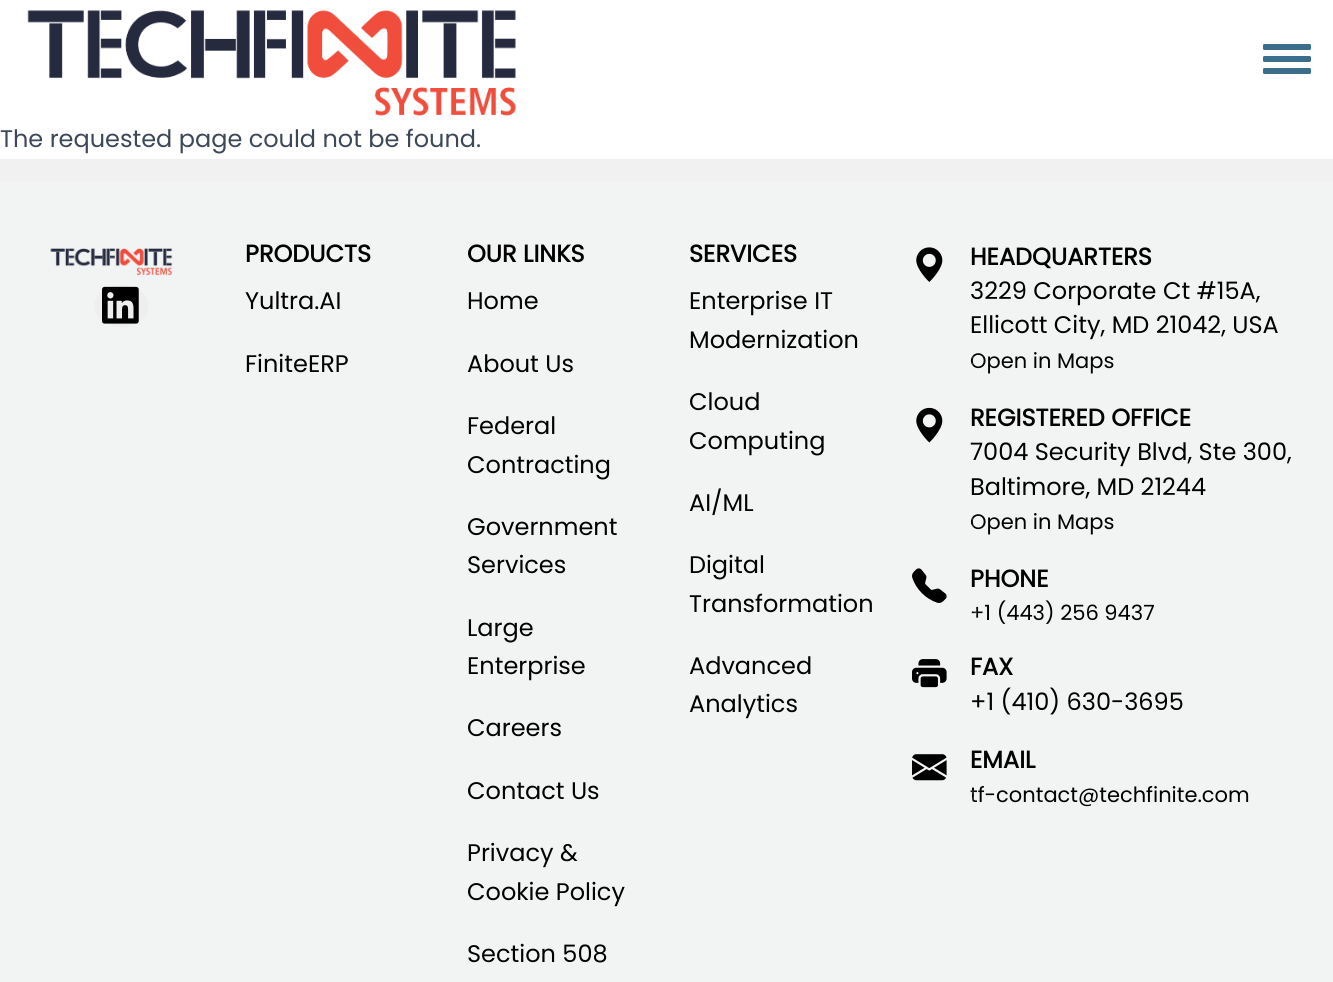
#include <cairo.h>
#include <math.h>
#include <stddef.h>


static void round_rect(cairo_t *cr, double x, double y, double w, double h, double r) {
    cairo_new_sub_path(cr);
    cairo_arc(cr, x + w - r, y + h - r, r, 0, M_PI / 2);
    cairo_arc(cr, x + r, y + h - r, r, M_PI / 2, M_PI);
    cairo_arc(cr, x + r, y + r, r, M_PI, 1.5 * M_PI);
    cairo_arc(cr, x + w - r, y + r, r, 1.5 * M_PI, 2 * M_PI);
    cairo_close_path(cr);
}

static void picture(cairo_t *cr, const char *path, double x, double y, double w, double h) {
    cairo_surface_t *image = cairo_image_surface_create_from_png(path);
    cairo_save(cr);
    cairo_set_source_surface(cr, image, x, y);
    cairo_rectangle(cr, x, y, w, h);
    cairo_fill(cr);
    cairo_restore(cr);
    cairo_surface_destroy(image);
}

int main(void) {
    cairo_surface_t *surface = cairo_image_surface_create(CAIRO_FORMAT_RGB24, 1333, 982);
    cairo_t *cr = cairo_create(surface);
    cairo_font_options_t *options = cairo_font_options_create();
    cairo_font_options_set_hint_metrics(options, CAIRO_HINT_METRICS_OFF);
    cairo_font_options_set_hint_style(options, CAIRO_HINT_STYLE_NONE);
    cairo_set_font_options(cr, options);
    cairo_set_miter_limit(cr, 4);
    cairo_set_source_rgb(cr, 1, 1, 1);
    cairo_paint(cr);
    picture(cr, "img1.png", 27, 10, 489, 106);
    cairo_set_source_rgb(cr, 0.227, 0.431, 0.549);
    round_rect(cr, 1263, 56, 48, 6, 1.5);
    cairo_fill(cr);
    round_rect(cr, 1263, 44, 48, 6, 1.5);
    cairo_fill(cr);
    round_rect(cr, 1263, 68, 48, 6, 1.5);
    cairo_fill(cr);
    cairo_select_font_face(cr, "Poppins", CAIRO_FONT_SLANT_NORMAL, CAIRO_FONT_WEIGHT_NORMAL);
    cairo_set_font_size(cr, 24);
    cairo_set_source_rgb(cr, 0.235, 0.282, 0.345);
    cairo_move_to(cr, 0, 147);
    cairo_show_text(cr, "The requested page could not be found.");
    cairo_set_source_rgb(cr, 0.945, 0.945, 0.945);
    cairo_rectangle(cr, 0, 159, 1333, 23);
    cairo_fill(cr);
    cairo_set_source_rgb(cr, 0.949, 0.953, 0.953);
    cairo_rectangle(cr, 0, 182, 1333, 800);
    cairo_fill(cr);
    picture(cr, "img2.png", 50, 248, 123, 28);
    cairo_set_source_rgb(cr, 0.933, 0.933, 0.933);
    cairo_new_path(cr);
    cairo_move_to(cr, 121.5, 285);
    cairo_curve_to(cr, 136.5, 285, 148.5, 294.5, 148.5, 306);
    cairo_curve_to(cr, 148.5, 317.5, 136.5, 327, 121.5, 327);
    cairo_curve_to(cr, 106.5, 327, 94.5, 317.5, 94.5, 306);
    cairo_curve_to(cr, 94.5, 294.5, 106.5, 285, 121.5, 285);
    cairo_close_path(cr);
    cairo_fill(cr);
    picture(cr, "img3.png", 102, 286, 37, 38);
    cairo_select_font_face(cr, "Poppins", CAIRO_FONT_SLANT_NORMAL, CAIRO_FONT_WEIGHT_BOLD);
    cairo_set_source_rgb(cr, 0, 0, 0);
    cairo_move_to(cr, 245, 262);
    cairo_show_text(cr, "PRODUCTS");
    cairo_select_font_face(cr, "Poppins", CAIRO_FONT_SLANT_NORMAL, CAIRO_FONT_WEIGHT_NORMAL);
    cairo_move_to(cr, 245, 309);
    cairo_show_text(cr, "Yultra.AI");
    cairo_move_to(cr, 245, 372);
    cairo_show_text(cr, "FiniteERP");
    cairo_select_font_face(cr, "Poppins", CAIRO_FONT_SLANT_NORMAL, CAIRO_FONT_WEIGHT_BOLD);
    cairo_move_to(cr, 467, 262);
    cairo_show_text(cr, "OUR LINKS");
    cairo_select_font_face(cr, "Poppins", CAIRO_FONT_SLANT_NORMAL, CAIRO_FONT_WEIGHT_NORMAL);
    cairo_move_to(cr, 467, 309);
    cairo_show_text(cr, "Home");
    cairo_move_to(cr, 467, 372);
    cairo_show_text(cr, "About Us");
    cairo_move_to(cr, 467, 434);
    cairo_show_text(cr, "Federal");
    cairo_move_to(cr, 467, 473);
    cairo_show_text(cr, "Contracting");
    cairo_move_to(cr, 467, 535);
    cairo_show_text(cr, "Government");
    cairo_move_to(cr, 467, 573);
    cairo_show_text(cr, "Services");
    cairo_move_to(cr, 467, 636);
    cairo_show_text(cr, "Large");
    cairo_move_to(cr, 467, 674);
    cairo_show_text(cr, "Enterprise");
    cairo_move_to(cr, 467, 736);
    cairo_show_text(cr, "Careers");
    cairo_move_to(cr, 467, 799);
    cairo_show_text(cr, "Contact Us");
    cairo_move_to(cr, 467, 861);
    cairo_show_text(cr, "Privacy &");
    cairo_move_to(cr, 467, 900);
    cairo_show_text(cr, "Cookie Policy");
    cairo_move_to(cr, 467, 962);
    cairo_show_text(cr, "Section 508");
    cairo_select_font_face(cr, "Poppins", CAIRO_FONT_SLANT_NORMAL, CAIRO_FONT_WEIGHT_BOLD);
    cairo_move_to(cr, 689, 262);
    cairo_show_text(cr, "SERVICES");
    cairo_select_font_face(cr, "Poppins", CAIRO_FONT_SLANT_NORMAL, CAIRO_FONT_WEIGHT_NORMAL);
    cairo_move_to(cr, 689, 309);
    cairo_show_text(cr, "Enterprise IT");
    cairo_move_to(cr, 689, 348);
    cairo_show_text(cr, "Modernization");
    cairo_move_to(cr, 689, 410);
    cairo_show_text(cr, "Cloud");
    cairo_move_to(cr, 689, 449);
    cairo_show_text(cr, "Computing");
    cairo_move_to(cr, 689, 511);
    cairo_show_text(cr, "AI/ML");
    cairo_move_to(cr, 689, 573);
    cairo_show_text(cr, "Digital");
    cairo_move_to(cr, 689, 612);
    cairo_show_text(cr, "Transformation");
    cairo_move_to(cr, 689, 674);
    cairo_show_text(cr, "Advanced");
    cairo_move_to(cr, 689, 712);
    cairo_show_text(cr, "Analytics");
    picture(cr, "img4.png", 916, 247, 27, 35);
    cairo_select_font_face(cr, "Poppins", CAIRO_FONT_SLANT_NORMAL, CAIRO_FONT_WEIGHT_BOLD);
    cairo_move_to(cr, 970, 265);
    cairo_show_text(cr, "HEADQUARTERS");
    cairo_select_font_face(cr, "Poppins", CAIRO_FONT_SLANT_NORMAL, CAIRO_FONT_WEIGHT_NORMAL);
    cairo_move_to(cr, 970, 299);
    cairo_show_text(cr, "3229 Corporate Ct #15A,");
    cairo_move_to(cr, 970, 333);
    cairo_show_text(cr, "Ellicott City, MD 21042, USA");
    cairo_set_font_size(cr, 21);
    cairo_move_to(cr, 970, 368);
    cairo_show_text(cr, "Open in Maps");
    picture(cr, "img5.png", 971, 355, 3, 11);
    picture(cr, "img6.png", 916, 407, 27, 36);
    cairo_select_font_face(cr, "Poppins", CAIRO_FONT_SLANT_NORMAL, CAIRO_FONT_WEIGHT_BOLD);
    cairo_set_font_size(cr, 24);
    cairo_move_to(cr, 970, 426);
    cairo_show_text(cr, "REGISTERED OFFICE");
    cairo_select_font_face(cr, "Poppins", CAIRO_FONT_SLANT_NORMAL, CAIRO_FONT_WEIGHT_NORMAL);
    cairo_move_to(cr, 970, 460);
    cairo_show_text(cr, "7004 Security Blvd, Ste 300,");
    cairo_move_to(cr, 970, 495);
    cairo_show_text(cr, "Baltimore, MD 21244");
    cairo_set_font_size(cr, 21);
    cairo_move_to(cr, 970, 529);
    cairo_show_text(cr, "Open in Maps");
    picture(cr, "img7.png", 971, 517, 4, 11);
    picture(cr, "img8.png", 912, 568, 35, 35);
    cairo_select_font_face(cr, "Poppins", CAIRO_FONT_SLANT_NORMAL, CAIRO_FONT_WEIGHT_BOLD);
    cairo_set_font_size(cr, 24);
    cairo_move_to(cr, 970, 587);
    cairo_show_text(cr, "PHONE");
    cairo_select_font_face(cr, "Poppins", CAIRO_FONT_SLANT_NORMAL, CAIRO_FONT_WEIGHT_NORMAL);
    cairo_set_font_size(cr, 21);
    cairo_move_to(cr, 970, 620);
    cairo_show_text(cr, "+1 (443) 256 9437");
    picture(cr, "img9.png", 973, 610, 5, 5);
    picture(cr, "img10.png", 912, 659, 35, 29);
    cairo_select_font_face(cr, "Poppins", CAIRO_FONT_SLANT_NORMAL, CAIRO_FONT_WEIGHT_BOLD);
    cairo_set_font_size(cr, 24);
    cairo_move_to(cr, 970, 675);
    cairo_show_text(cr, "FAX");
    cairo_select_font_face(cr, "Poppins", CAIRO_FONT_SLANT_NORMAL, CAIRO_FONT_WEIGHT_NORMAL);
    cairo_move_to(cr, 970, 710);
    cairo_show_text(cr, "+1 (410) 630-3695");
    picture(cr, "img11.png", 912, 754, 35, 27);
    cairo_select_font_face(cr, "Poppins", CAIRO_FONT_SLANT_NORMAL, CAIRO_FONT_WEIGHT_BOLD);
    cairo_move_to(cr, 970, 768);
    cairo_show_text(cr, "EMAIL");
    cairo_select_font_face(cr, "Poppins", CAIRO_FONT_SLANT_NORMAL, CAIRO_FONT_WEIGHT_NORMAL);
    cairo_set_font_size(cr, 21);
    cairo_move_to(cr, 970, 802);
    cairo_show_text(cr, "tf-contact@techfinite.com");
    picture(cr, "img12.png", 970, 790, 5, 11);
    cairo_surface_write_to_png(surface, "page.png");
    cairo_font_options_destroy(options);
    cairo_destroy(cr);
    cairo_surface_destroy(surface);
    return 0;
}
